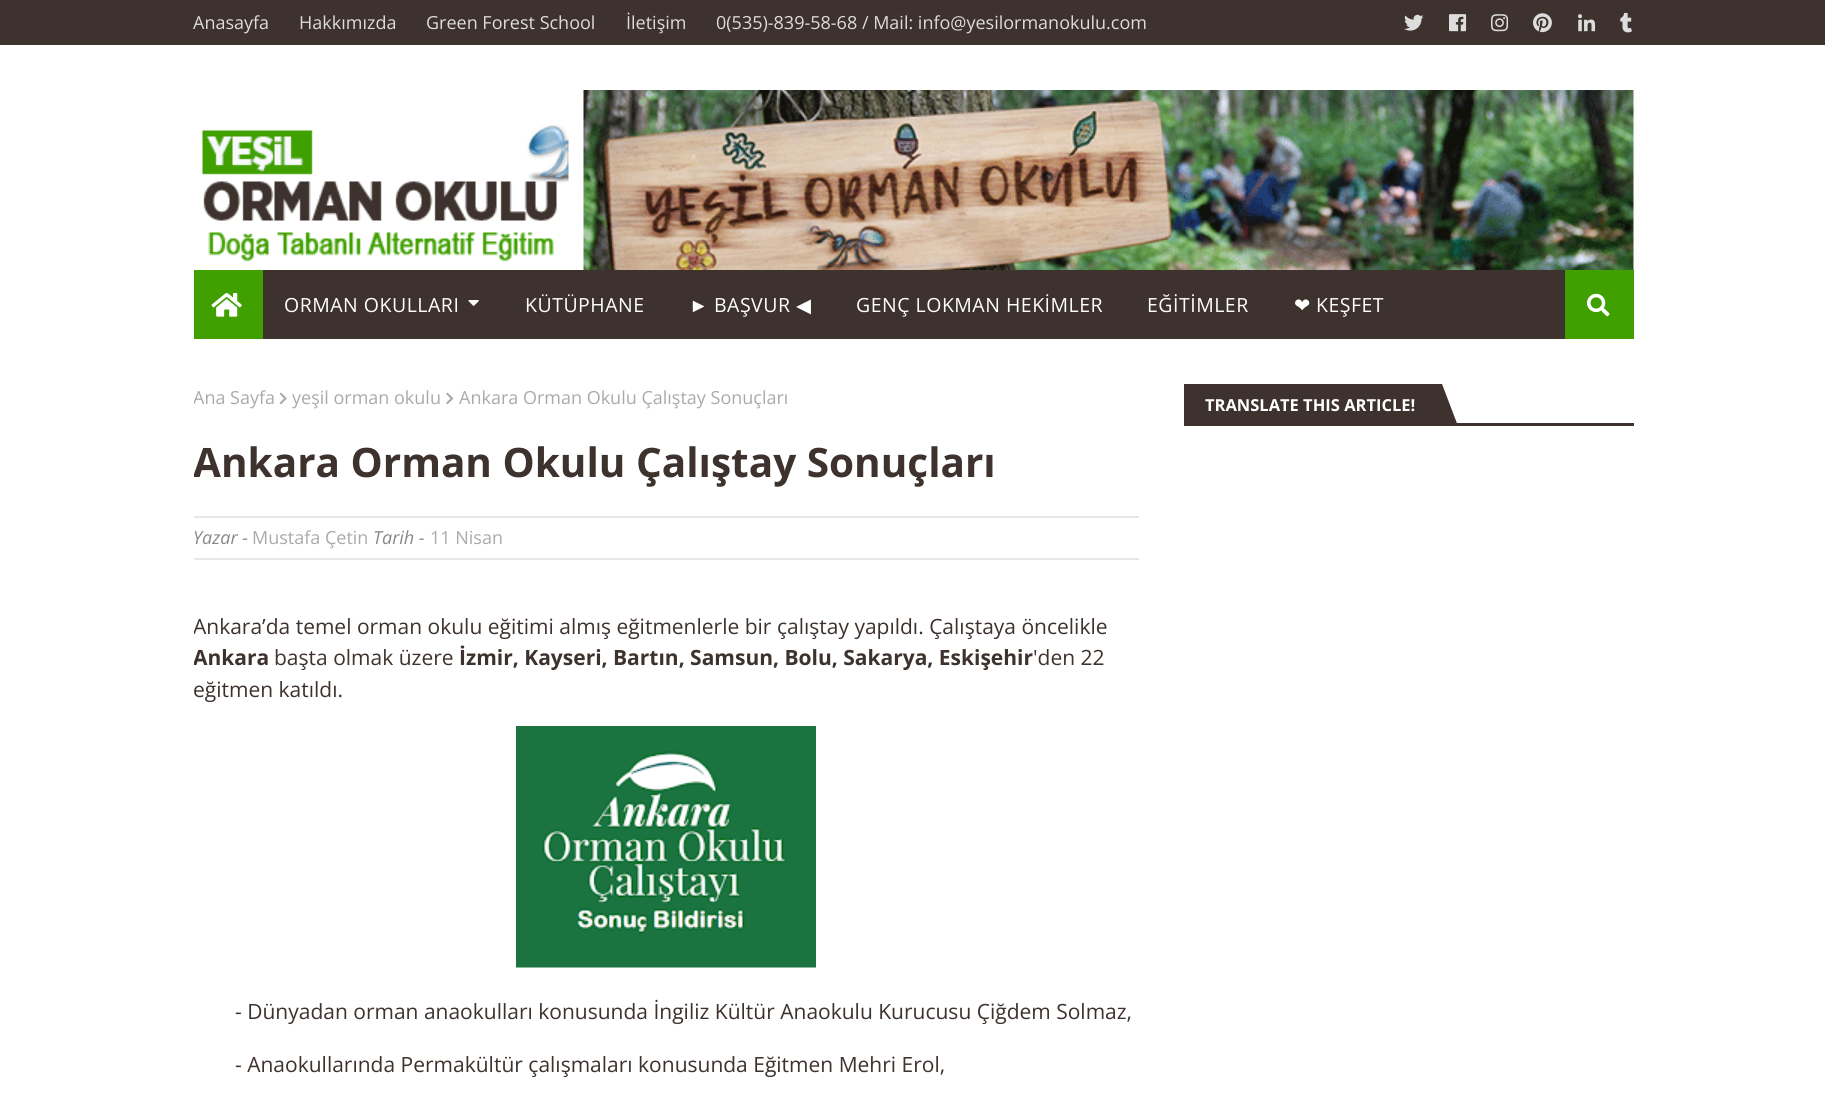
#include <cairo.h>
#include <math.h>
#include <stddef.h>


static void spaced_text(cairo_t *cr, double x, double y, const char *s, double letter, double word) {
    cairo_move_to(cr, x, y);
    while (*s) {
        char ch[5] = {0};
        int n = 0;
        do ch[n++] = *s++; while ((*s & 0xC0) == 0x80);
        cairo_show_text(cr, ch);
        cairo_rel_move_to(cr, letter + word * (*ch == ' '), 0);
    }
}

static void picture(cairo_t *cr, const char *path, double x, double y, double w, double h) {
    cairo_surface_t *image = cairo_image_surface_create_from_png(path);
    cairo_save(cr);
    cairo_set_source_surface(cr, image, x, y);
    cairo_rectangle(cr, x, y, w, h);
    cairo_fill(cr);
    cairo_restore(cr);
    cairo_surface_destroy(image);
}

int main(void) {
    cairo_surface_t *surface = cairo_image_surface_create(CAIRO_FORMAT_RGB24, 1825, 1102);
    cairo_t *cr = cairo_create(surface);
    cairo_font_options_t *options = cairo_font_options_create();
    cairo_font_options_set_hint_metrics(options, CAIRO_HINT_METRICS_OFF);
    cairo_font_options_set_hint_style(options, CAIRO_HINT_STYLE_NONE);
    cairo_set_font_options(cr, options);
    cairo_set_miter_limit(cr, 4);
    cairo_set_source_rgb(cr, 1, 1, 1);
    cairo_paint(cr);
    cairo_set_source_rgb(cr, 0.239, 0.196, 0.176);
    cairo_rectangle(cr, 0, 0, 1825, 45);
    cairo_fill(cr);
    cairo_select_font_face(cr, "Open Sans", CAIRO_FONT_SLANT_NORMAL, CAIRO_FONT_WEIGHT_NORMAL);
    cairo_set_font_size(cr, 18);
    cairo_set_source_rgb(cr, 0.867, 0.867, 0.867);
    cairo_move_to(cr, 193, 29);
    cairo_show_text(cr, "Anasayfa");
    cairo_move_to(cr, 299, 29);
    cairo_show_text(cr, "Hakkımızda");
    cairo_move_to(cr, 426, 29);
    cairo_show_text(cr, "Green Forest School");
    cairo_move_to(cr, 626, 29);
    cairo_show_text(cr, "İletişim");
    cairo_move_to(cr, 716, 29);
    cairo_show_text(cr, "0(535)-839-58-68 / Mail: info@yesilormanokulu.com");
    picture(cr, "img1.png", 1404, 14, 20, 17);
    picture(cr, "img2.png", 1449, 14, 18, 18);
    picture(cr, "img3.png", 1491, 14, 18, 18);
    picture(cr, "img4.png", 1533, 13, 19, 20);
    picture(cr, "img5.png", 1578, 14, 18, 18);
    picture(cr, "img6.png", 1620, 12, 12, 21);
    picture(cr, "img7.png", 202, 124, 367, 138);
    picture(cr, "img8.png", 583, 90, 1051, 180);
    cairo_set_source_rgb(cr, 0.239, 0.196, 0.176);
    cairo_rectangle(cr, 263, 270, 1302, 69);
    cairo_fill(cr);
    cairo_set_source_rgb(cr, 0.247, 0.627, 0);
    cairo_rectangle(cr, 194, 270, 69, 69);
    cairo_fill(cr);
    picture(cr, "img9.png", 211, 293, 31, 24);
    cairo_set_font_size(cr, 19.5);
    cairo_set_source_rgb(cr, 1, 1, 1);
    spaced_text(cr, 284, 312, "ORMAN OKULLARI", 0.5, 0);
    picture(cr, "img10.png", 468, 300, 11, 6);
    spaced_text(cr, 525, 312, "KÜTÜPHANE", 0.5, 0);
    cairo_select_font_face(cr, "Liberation Sans", CAIRO_FONT_SLANT_NORMAL, CAIRO_FONT_WEIGHT_NORMAL);
    spaced_text(cr, 689, 312, "►", 0.5, 0);
    cairo_select_font_face(cr, "Open Sans", CAIRO_FONT_SLANT_NORMAL, CAIRO_FONT_WEIGHT_NORMAL);
    spaced_text(cr, 714, 312, "BAŞVUR", 0.5, 0);
    cairo_select_font_face(cr, "DejaVu Sans", CAIRO_FONT_SLANT_NORMAL, CAIRO_FONT_WEIGHT_NORMAL);
    spaced_text(cr, 796, 312, "◀", 0.5, 0);
    cairo_select_font_face(cr, "Open Sans", CAIRO_FONT_SLANT_NORMAL, CAIRO_FONT_WEIGHT_NORMAL);
    spaced_text(cr, 856, 312, "GENÇ LOKMAN HEKİMLER", 0.5, 0);
    spaced_text(cr, 1147, 312, "EĞİTİMLER", 0.5, 0);
    cairo_select_font_face(cr, "DejaVu Sans", CAIRO_FONT_SLANT_NORMAL, CAIRO_FONT_WEIGHT_NORMAL);
    spaced_text(cr, 1294, 312, "❤", 0.5, 0);
    cairo_select_font_face(cr, "Open Sans", CAIRO_FONT_SLANT_NORMAL, CAIRO_FONT_WEIGHT_NORMAL);
    spaced_text(cr, 1316, 312, "KEŞFET", 0.5, 0);
    cairo_set_source_rgb(cr, 0.247, 0.627, 0);
    cairo_rectangle(cr, 1565, 270, 69, 69);
    cairo_fill(cr);
    picture(cr, "img11.png", 1587, 293, 23, 24);
    cairo_save(cr);
    cairo_rectangle(cr, 194, 384, 945, 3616);
    cairo_clip(cr);
    cairo_set_font_size(cr, 18);
    cairo_set_source_rgb(cr, 0.667, 0.667, 0.667);
    cairo_move_to(cr, 193, 404);
    cairo_show_text(cr, "Ana Sayfa");
    cairo_restore(cr);
    picture(cr, "img12.png", 279, 392, 8, 13);
    cairo_set_font_size(cr, 18);
    cairo_set_source_rgb(cr, 0.667, 0.667, 0.667);
    cairo_move_to(cr, 292, 404);
    cairo_show_text(cr, "yeşil orman okulu");
    picture(cr, "img13.png", 446, 392, 8, 13);
    cairo_move_to(cr, 459, 404);
    cairo_show_text(cr, "Ankara Orman Okulu Çalıştay Sonuçları");
    cairo_save(cr);
    cairo_rectangle(cr, 194, 384, 945, 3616);
    cairo_clip(cr);
    cairo_select_font_face(cr, "Open Sans", CAIRO_FONT_SLANT_NORMAL, CAIRO_FONT_WEIGHT_BOLD);
    cairo_set_font_size(cr, 40.5);
    cairo_set_source_rgb(cr, 0.239, 0.196, 0.176);
    cairo_move_to(cr, 193, 477);
    cairo_show_text(cr, "Ankara Orman Okulu Çalıştay Sonuçları");
    cairo_restore(cr);
    cairo_set_source_rgb(cr, 0.906, 0.906, 0.906);
    cairo_rectangle(cr, 194, 516, 945, 2);
    cairo_fill(cr);
    cairo_rectangle(cr, 194, 558, 945, 2);
    cairo_fill(cr);
    cairo_select_font_face(cr, "Open Sans", CAIRO_FONT_SLANT_ITALIC, CAIRO_FONT_WEIGHT_NORMAL);
    cairo_set_source_rgb(cr, 0.533, 0.533, 0.533);
    cairo_move_to(cr, 193, 544);
    cairo_show_text(cr, "Yazar -");
    cairo_select_font_face(cr, "Open Sans", CAIRO_FONT_SLANT_NORMAL, CAIRO_FONT_WEIGHT_NORMAL);
    cairo_set_source_rgb(cr, 0.667, 0.667, 0.667);
    cairo_move_to(cr, 252, 544);
    cairo_show_text(cr, "Mustafa Çetin");
    cairo_select_font_face(cr, "Open Sans", CAIRO_FONT_SLANT_ITALIC, CAIRO_FONT_WEIGHT_NORMAL);
    cairo_set_source_rgb(cr, 0.533, 0.533, 0.533);
    cairo_move_to(cr, 373, 544);
    cairo_show_text(cr, "Tarih -");
    cairo_select_font_face(cr, "Open Sans", CAIRO_FONT_SLANT_NORMAL, CAIRO_FONT_WEIGHT_NORMAL);
    cairo_set_source_rgb(cr, 0.667, 0.667, 0.667);
    cairo_move_to(cr, 430, 544);
    cairo_show_text(cr, "11 Nisan");
    cairo_save(cr);
    cairo_rectangle(cr, 194, 384, 945, 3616);
    cairo_clip(cr);
    cairo_set_font_size(cr, 21);
    cairo_set_source_rgb(cr, 0.239, 0.196, 0.176);
    cairo_move_to(cr, 193, 634);
    cairo_show_text(cr, "Ankara’da temel orman okulu eğitimi almış eğitmenlerle bir çalıştay yapıldı. Çalıştaya öncelikle");
    cairo_select_font_face(cr, "Open Sans", CAIRO_FONT_SLANT_NORMAL, CAIRO_FONT_WEIGHT_BOLD);
    cairo_move_to(cr, 193, 665);
    cairo_show_text(cr, "Ankara");
    cairo_restore(cr);
    cairo_set_font_size(cr, 21);
    cairo_set_source_rgb(cr, 0.239, 0.196, 0.176);
    cairo_move_to(cr, 274, 665);
    cairo_show_text(cr, "başta olmak üzere");
    cairo_select_font_face(cr, "Open Sans", CAIRO_FONT_SLANT_NORMAL, CAIRO_FONT_WEIGHT_BOLD);
    cairo_move_to(cr, 459, 665);
    cairo_show_text(cr, "İzmir, Kayseri, Bartın, Samsun, Bolu, Sakarya, Eskişehir");
    cairo_select_font_face(cr, "Open Sans", CAIRO_FONT_SLANT_NORMAL, CAIRO_FONT_WEIGHT_NORMAL);
    cairo_move_to(cr, 1033, 665);
    cairo_show_text(cr, "'den 22");
    cairo_move_to(cr, 193, 697);
    cairo_show_text(cr, "eğitmen katıldı.");
    picture(cr, "img14.png", 516, 726, 300, 242);
    cairo_move_to(cr, 235, 1019);
    cairo_show_text(cr, "- Dünyadan orman anaokulları konusunda İngiliz Kültür Anaokulu Kurucusu Çiğdem Solmaz,");
    cairo_move_to(cr, 235, 1072);
    cairo_show_text(cr, "- Anaokullarında Permakültür çalışmaları konusunda Eğitmen Mehri Erol,");
    cairo_rectangle(cr, 1456, 423, 178, 3);
    cairo_fill(cr);
    cairo_rectangle(cr, 1184, 384, 251, 42);
    cairo_fill(cr);
    cairo_select_font_face(cr, "Open Sans", CAIRO_FONT_SLANT_NORMAL, CAIRO_FONT_WEIGHT_BOLD);
    cairo_set_font_size(cr, 16.5);
    cairo_set_source_rgb(cr, 1, 1, 1);
    cairo_move_to(cr, 1205, 411);
    cairo_show_text(cr, "TRANSLATE THIS ARTICLE!");
    cairo_set_source_rgb(cr, 0.239, 0.196, 0.176);
    cairo_new_path(cr);
    cairo_move_to(cr, 1420, 384);
    cairo_line_to(cr, 1442, 384);
    cairo_line_to(cr, 1458, 426);
    cairo_line_to(cr, 1435, 426);
    cairo_close_path(cr);
    cairo_fill(cr);
    cairo_surface_write_to_png(surface, "page.png");
    cairo_font_options_destroy(options);
    cairo_destroy(cr);
    cairo_surface_destroy(surface);
    return 0;
}
